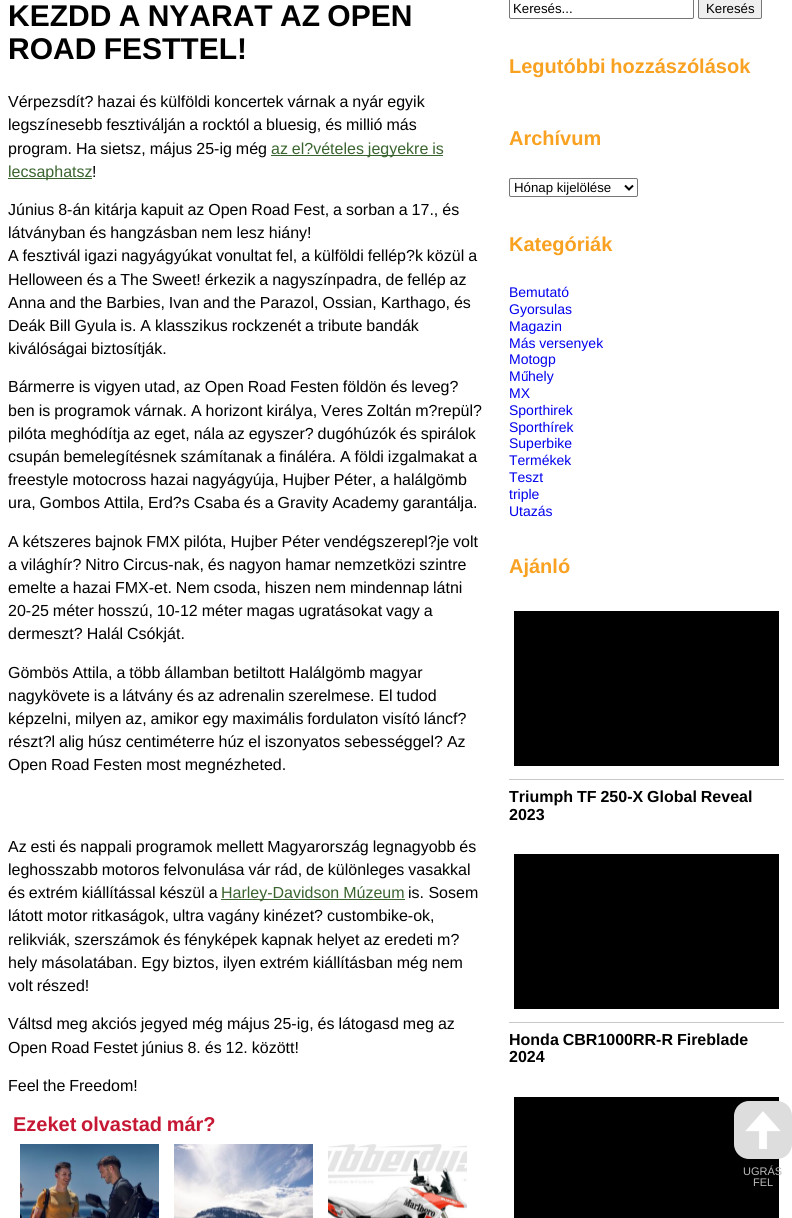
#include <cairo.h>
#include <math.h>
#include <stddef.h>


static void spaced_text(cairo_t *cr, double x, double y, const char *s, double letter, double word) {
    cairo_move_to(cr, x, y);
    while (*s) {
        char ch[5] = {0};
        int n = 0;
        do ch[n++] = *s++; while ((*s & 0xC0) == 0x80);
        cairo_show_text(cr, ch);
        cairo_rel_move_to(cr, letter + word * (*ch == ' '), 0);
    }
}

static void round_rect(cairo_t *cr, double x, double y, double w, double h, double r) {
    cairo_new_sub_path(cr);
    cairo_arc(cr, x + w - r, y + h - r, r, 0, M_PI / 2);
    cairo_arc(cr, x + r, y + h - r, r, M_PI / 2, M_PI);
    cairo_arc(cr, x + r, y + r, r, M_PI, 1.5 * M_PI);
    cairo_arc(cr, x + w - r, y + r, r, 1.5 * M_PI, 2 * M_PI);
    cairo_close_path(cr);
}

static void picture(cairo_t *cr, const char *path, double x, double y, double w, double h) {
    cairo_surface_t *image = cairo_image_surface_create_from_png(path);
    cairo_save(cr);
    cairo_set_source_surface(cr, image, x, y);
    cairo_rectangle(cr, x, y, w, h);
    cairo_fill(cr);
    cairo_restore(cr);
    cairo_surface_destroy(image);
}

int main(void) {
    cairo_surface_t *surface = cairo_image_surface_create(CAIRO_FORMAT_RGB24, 792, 1218);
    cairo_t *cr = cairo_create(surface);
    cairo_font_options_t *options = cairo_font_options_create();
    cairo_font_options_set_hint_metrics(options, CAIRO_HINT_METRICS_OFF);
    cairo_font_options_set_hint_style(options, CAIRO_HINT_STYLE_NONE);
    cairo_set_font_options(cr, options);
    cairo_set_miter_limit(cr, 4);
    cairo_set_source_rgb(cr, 1, 1, 1);
    cairo_paint(cr);
    cairo_select_font_face(cr, "Liberation Sans", CAIRO_FONT_SLANT_NORMAL, CAIRO_FONT_WEIGHT_BOLD);
    cairo_set_font_size(cr, 30);
    cairo_set_source_rgb(cr, 0, 0, 0);
    spaced_text(cr, 8, 26, "KEZDD A NYARAT AZ OPEN", 0, -1);
    spaced_text(cr, 8, 59, "ROAD FESTTEL!", 0, -1);
    cairo_select_font_face(cr, "Liberation Sans", CAIRO_FONT_SLANT_NORMAL, CAIRO_FONT_WEIGHT_NORMAL);
    cairo_set_font_size(cr, 16);
    spaced_text(cr, 8, 107, "Vérpezsdít? hazai és külföldi koncertek várnak a nyár egyik", 0, -0.5);
    spaced_text(cr, 8, 130, "legszínesebb fesztiválján a rocktól a bluesig, és millió más", 0, -0.5);
    spaced_text(cr, 8, 154, "program. Ha sietsz, május 25-ig még", 0, -0.5);
    cairo_set_source_rgb(cr, 0.227, 0.392, 0.184);
    cairo_rectangle(cr, 271, 155, 172, 1);
    cairo_fill(cr);
    spaced_text(cr, 271, 154, "az el?vételes jegyekre is", 0, -0.5);
    cairo_rectangle(cr, 8, 178, 84, 1);
    cairo_fill(cr);
    cairo_move_to(cr, 8, 177);
    cairo_show_text(cr, "lecsaphatsz");
    cairo_set_source_rgb(cr, 0, 0, 0);
    cairo_move_to(cr, 92, 177);
    cairo_show_text(cr, "!");
    spaced_text(cr, 8, 215, "Június 8-án kitárja kapuit az Open Road Fest, a sorban a 17., és", 0, -0.5);
    spaced_text(cr, 8, 238, "látványban és hangzásban nem lesz hiány!", 0, -0.5);
    spaced_text(cr, 8, 261, "A fesztivál igazi nagyágyúkat vonultat fel, a külföldi fellép?k közül a", 0, -0.5);
    spaced_text(cr, 8, 285, "Helloween és a The Sweet! érkezik a nagyszínpadra, de fellép az", 0, -0.5);
    spaced_text(cr, 8, 308, "Anna and the Barbies, Ivan and the Parazol, Ossian, Karthago, és", 0, -0.5);
    spaced_text(cr, 8, 331, "Deák Bill Gyula is. A klasszikus rockzenét a tribute bandák", 0, -0.5);
    spaced_text(cr, 8, 354, "kiválóságai biztosítják.", 0, -0.5);
    spaced_text(cr, 8, 392, "Bármerre is vigyen utad, az Open Road Festen földön és leveg?", 0, -0.5);
    spaced_text(cr, 8, 416, "ben is programok várnak. A horizont királya, Veres Zoltán m?repül?", 0, -0.5);
    spaced_text(cr, 8, 439, "pilóta meghódítja az eget, nála az egyszer? dugóhúzók és spirálok", 0, -0.5);
    spaced_text(cr, 8, 462, "csupán bemelegítésnek számítanak a fináléra. A földi izgalmakat a", 0, -0.5);
    spaced_text(cr, 8, 485, "freestyle motocross hazai nagyágyúja, Hujber Péter, a halálgömb", 0, -0.5);
    spaced_text(cr, 8, 508, "ura, Gombos Attila, Erd?s Csaba és a Gravity Academy garantálja.", 0, -0.5);
    spaced_text(cr, 8, 547, "A kétszeres bajnok FMX pilóta, Hujber Péter vendégszerepl?je volt", 0, -0.5);
    spaced_text(cr, 8, 570, "a világhír? Nitro Circus-nak, és nagyon hamar nemzetközi szintre", 0, -0.5);
    spaced_text(cr, 8, 593, "emelte a hazai FMX-et. Nem csoda, hiszen nem mindennap látni", 0, -0.5);
    spaced_text(cr, 8, 616, "20-25 méter hosszú, 10-12 méter magas ugratásokat vagy a", 0, -0.5);
    spaced_text(cr, 8, 639, "dermeszt? Halál Csókját.", 0, -0.5);
    spaced_text(cr, 8, 678, "Gömbös Attila, a több államban betiltott Halálgömb magyar", 0, -0.5);
    spaced_text(cr, 8, 701, "nagykövete is a látvány és az adrenalin szerelmese. El tudod", 0, -0.5);
    spaced_text(cr, 8, 724, "képzelni, milyen az, amikor egy maximális fordulaton visító láncf?", 0, -0.5);
    spaced_text(cr, 8, 747, "részt?l alig húsz centiméterre húz el iszonyatos sebességgel? Az", 0, -0.5);
    spaced_text(cr, 8, 770, "Open Road Festen most megnézheted.", 0, -0.5);
    spaced_text(cr, 8, 852, "Az esti és nappali programok mellett Magyarország legnagyobb és", 0, -0.5);
    spaced_text(cr, 8, 875, "leghosszabb motoros felvonulása vár rád, de különleges vasakkal", 0, -0.5);
    spaced_text(cr, 8, 898, "és extrém kiállítással készül a", 0, -0.5);
    cairo_set_source_rgb(cr, 0.227, 0.392, 0.184);
    cairo_rectangle(cr, 221, 899, 184, 1);
    cairo_fill(cr);
    spaced_text(cr, 221, 898, "Harley-Davidson Múzeum", 0, -0.5);
    cairo_set_source_rgb(cr, 0, 0, 0);
    cairo_move_to(cr, 408, 898);
    cairo_show_text(cr, "is. Sosem");
    spaced_text(cr, 8, 921, "látott motor ritkaságok, ultra vagány kinézet? custombike-ok,", 0, -0.5);
    spaced_text(cr, 8, 945, "relikviák, szerszámok és fényképek kapnak helyet az eredeti m?", 0, -0.5);
    spaced_text(cr, 8, 968, "hely másolatában. Egy biztos, ilyen extrém kiállításban még nem", 0, -0.5);
    spaced_text(cr, 8, 991, "volt részed!", 0, -0.5);
    spaced_text(cr, 8, 1029, "Váltsd meg akciós jegyed még május 25-ig, és látogasd meg az", 0, -0.5);
    spaced_text(cr, 8, 1053, "Open Road Festet június 8. és 12. között!", 0, -0.5);
    spaced_text(cr, 8, 1091, "Feel the Freedom!", 0, -0.5);
    cairo_select_font_face(cr, "Liberation Sans", CAIRO_FONT_SLANT_NORMAL, CAIRO_FONT_WEIGHT_BOLD);
    cairo_set_font_size(cr, 20);
    cairo_set_source_rgb(cr, 0.776, 0.094, 0.204);
    spaced_text(cr, 13, 1131, "Ezeket olvastad már?", 0, -1);
    picture(cr, "img1.png", 20, 1144, 139, 74);
    picture(cr, "img2.png", 174, 1144, 139, 74);
    picture(cr, "img3.png", 328, 1144, 139, 74);
    round_rect(cr, 509.5, -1.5, 184, 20, 1.5);
    cairo_set_source_rgb(cr, 0.463, 0.463, 0.463);
    cairo_set_line_width(cr, 1);
    cairo_stroke(cr);
    cairo_select_font_face(cr, "Liberation Sans", CAIRO_FONT_SLANT_NORMAL, CAIRO_FONT_WEIGHT_NORMAL);
    cairo_set_font_size(cr, 13.25);
    cairo_set_source_rgb(cr, 0, 0, 0);
    cairo_move_to(cr, 513, 13);
    cairo_show_text(cr, "Keresés...");
    cairo_set_source_rgb(cr, 0.937, 0.937, 0.937);
    round_rect(cr, 698.5, -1.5, 63, 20, 1.5);
    cairo_fill_preserve(cr);
    cairo_set_source_rgb(cr, 0.463, 0.463, 0.463);
    cairo_stroke(cr);
    cairo_set_source_rgb(cr, 0, 0, 0);
    cairo_move_to(cr, 706, 13);
    cairo_show_text(cr, "Keresés");
    cairo_select_font_face(cr, "Liberation Sans", CAIRO_FONT_SLANT_NORMAL, CAIRO_FONT_WEIGHT_BOLD);
    cairo_set_font_size(cr, 20);
    cairo_set_source_rgb(cr, 0.976, 0.631, 0.125);
    spaced_text(cr, 509, 73, "Legutóbbi hozzászólások", 0, -1);
    cairo_move_to(cr, 509, 145);
    cairo_show_text(cr, "Archívum");
    round_rect(cr, 509.5, 178.5, 128, 18, 1.5);
    cairo_set_source_rgb(cr, 0.463, 0.463, 0.463);
    cairo_stroke(cr);
    cairo_new_path(cr);
    cairo_move_to(cr, 625, 185.5);
    cairo_line_to(cr, 629, 189.5);
    cairo_line_to(cr, 633, 185.5);
    cairo_set_source_rgb(cr, 0, 0, 0);
    cairo_set_line_width(cr, 2);
    cairo_stroke(cr);
    cairo_select_font_face(cr, "Liberation Sans", CAIRO_FONT_SLANT_NORMAL, CAIRO_FONT_WEIGHT_NORMAL);
    cairo_set_font_size(cr, 13.25);
    cairo_move_to(cr, 514, 192);
    cairo_show_text(cr, "Hónap kijelölése");
    cairo_select_font_face(cr, "Liberation Sans", CAIRO_FONT_SLANT_NORMAL, CAIRO_FONT_WEIGHT_BOLD);
    cairo_set_font_size(cr, 20);
    cairo_set_source_rgb(cr, 0.976, 0.631, 0.125);
    cairo_move_to(cr, 509, 251);
    cairo_show_text(cr, "Kategóriák");
    cairo_select_font_face(cr, "Liberation Sans", CAIRO_FONT_SLANT_NORMAL, CAIRO_FONT_WEIGHT_NORMAL);
    cairo_set_font_size(cr, 14);
    cairo_set_source_rgb(cr, 0, 0, 0.933);
    cairo_move_to(cr, 509, 297);
    cairo_show_text(cr, "Bemutató");
    cairo_move_to(cr, 509, 314);
    cairo_show_text(cr, "Gyorsulas");
    cairo_move_to(cr, 509, 331);
    cairo_show_text(cr, "Magazin");
    cairo_move_to(cr, 509, 348);
    cairo_show_text(cr, "Más versenyek");
    cairo_move_to(cr, 509, 364);
    cairo_show_text(cr, "Motogp");
    cairo_move_to(cr, 509, 381);
    cairo_show_text(cr, "M");
    cairo_select_font_face(cr, "Hind Vadodara", CAIRO_FONT_SLANT_NORMAL, CAIRO_FONT_WEIGHT_NORMAL);
    cairo_move_to(cr, 521, 381);
    cairo_show_text(cr, "ű");
    cairo_select_font_face(cr, "Liberation Sans", CAIRO_FONT_SLANT_NORMAL, CAIRO_FONT_WEIGHT_NORMAL);
    cairo_move_to(cr, 528, 381);
    cairo_show_text(cr, "hely");
    cairo_move_to(cr, 509, 398);
    cairo_show_text(cr, "MX");
    cairo_move_to(cr, 509, 415);
    cairo_show_text(cr, "Sporthirek");
    cairo_move_to(cr, 509, 432);
    cairo_show_text(cr, "Sporthírek");
    cairo_move_to(cr, 509, 448);
    cairo_show_text(cr, "Superbike");
    cairo_move_to(cr, 509, 465);
    cairo_show_text(cr, "Termékek");
    cairo_move_to(cr, 509, 482);
    cairo_show_text(cr, "Teszt");
    cairo_move_to(cr, 509, 499);
    cairo_show_text(cr, "triple");
    cairo_move_to(cr, 509, 516);
    cairo_show_text(cr, "Utazás");
    cairo_select_font_face(cr, "Liberation Sans", CAIRO_FONT_SLANT_NORMAL, CAIRO_FONT_WEIGHT_BOLD);
    cairo_set_font_size(cr, 20);
    cairo_set_source_rgb(cr, 0.976, 0.631, 0.125);
    cairo_move_to(cr, 509, 573);
    cairo_show_text(cr, "Ajánló");
    cairo_set_source_rgb(cr, 0.784, 0.784, 0.784);
    cairo_rectangle(cr, 509, 779, 275, 1);
    cairo_fill(cr);
    cairo_set_source_rgb(cr, 0, 0, 0);
    cairo_rectangle(cr, 514, 611, 265, 155);
    cairo_fill(cr);
    cairo_set_font_size(cr, 16);
    spaced_text(cr, 509, 802, "Triumph TF 250-X Global Reveal", 0, -0.5);
    cairo_move_to(cr, 509, 820);
    cairo_show_text(cr, "2023");
    cairo_set_source_rgb(cr, 0.784, 0.784, 0.784);
    cairo_rectangle(cr, 509, 1022, 275, 1);
    cairo_fill(cr);
    cairo_set_source_rgb(cr, 0, 0, 0);
    cairo_rectangle(cr, 514, 854, 265, 155);
    cairo_fill(cr);
    spaced_text(cr, 509, 1045, "Honda CBR1000RR-R Fireblade", 0, -0.5);
    cairo_move_to(cr, 509, 1062);
    cairo_show_text(cr, "2024");
    cairo_rectangle(cr, 514, 1097, 265, 121);
    cairo_fill(cr);
    cairo_set_source_rgb(cr, 0.867, 0.867, 0.867);
    round_rect(cr, 734, 1101, 58, 58, 15);
    cairo_fill(cr);
    picture(cr, "img4.png", 745, 1111, 36, 38);
    cairo_select_font_face(cr, "Liberation Sans", CAIRO_FONT_SLANT_NORMAL, CAIRO_FONT_WEIGHT_NORMAL);
    cairo_set_font_size(cr, 11);
    cairo_set_source_rgb(cr, 0.733, 0.733, 0.733);
    cairo_move_to(cr, 743, 1175);
    cairo_show_text(cr, "UGRÁS");
    cairo_move_to(cr, 753, 1186);
    cairo_show_text(cr, "FEL");
    cairo_surface_write_to_png(surface, "page.png");
    cairo_font_options_destroy(options);
    cairo_destroy(cr);
    cairo_surface_destroy(surface);
    return 0;
}
